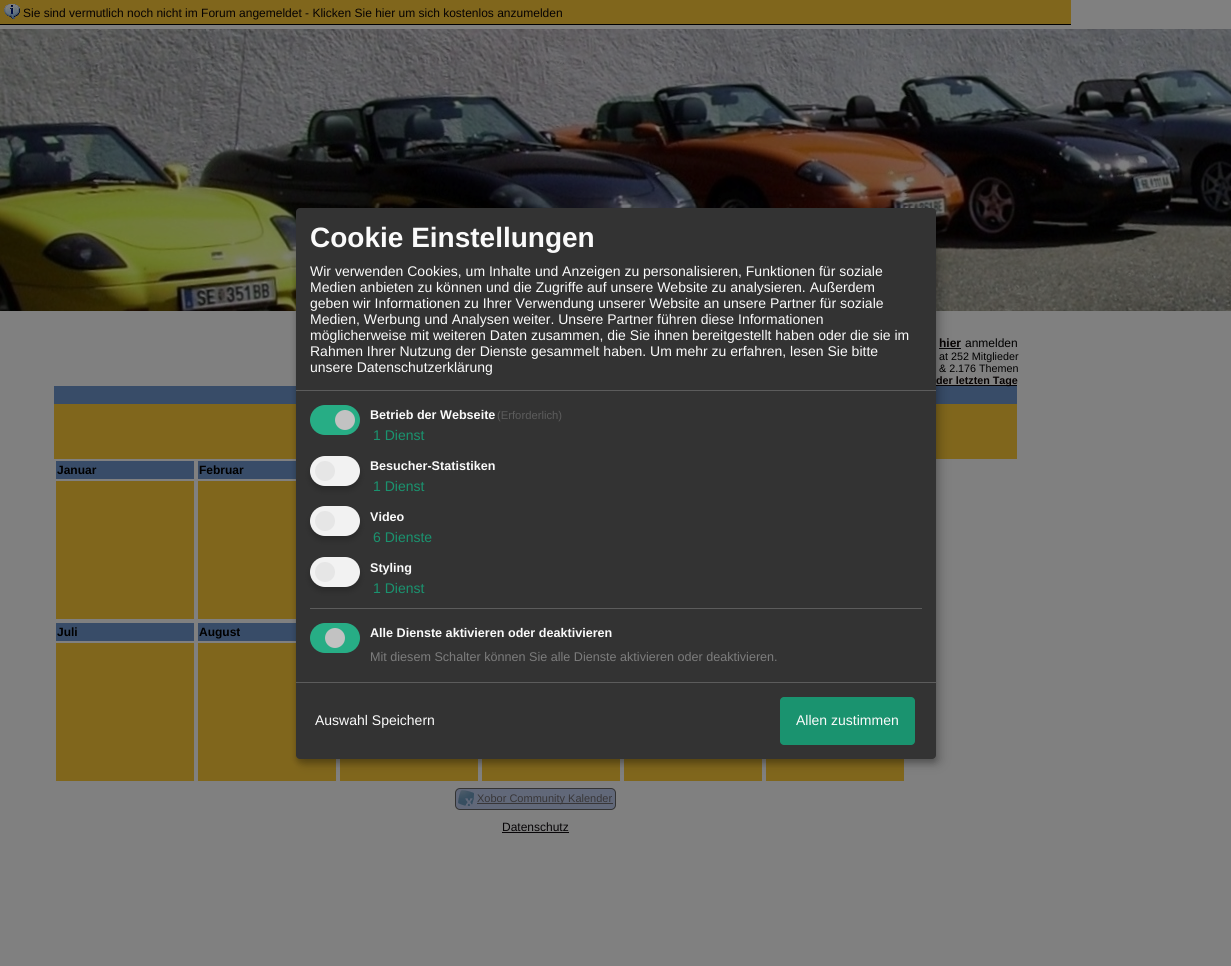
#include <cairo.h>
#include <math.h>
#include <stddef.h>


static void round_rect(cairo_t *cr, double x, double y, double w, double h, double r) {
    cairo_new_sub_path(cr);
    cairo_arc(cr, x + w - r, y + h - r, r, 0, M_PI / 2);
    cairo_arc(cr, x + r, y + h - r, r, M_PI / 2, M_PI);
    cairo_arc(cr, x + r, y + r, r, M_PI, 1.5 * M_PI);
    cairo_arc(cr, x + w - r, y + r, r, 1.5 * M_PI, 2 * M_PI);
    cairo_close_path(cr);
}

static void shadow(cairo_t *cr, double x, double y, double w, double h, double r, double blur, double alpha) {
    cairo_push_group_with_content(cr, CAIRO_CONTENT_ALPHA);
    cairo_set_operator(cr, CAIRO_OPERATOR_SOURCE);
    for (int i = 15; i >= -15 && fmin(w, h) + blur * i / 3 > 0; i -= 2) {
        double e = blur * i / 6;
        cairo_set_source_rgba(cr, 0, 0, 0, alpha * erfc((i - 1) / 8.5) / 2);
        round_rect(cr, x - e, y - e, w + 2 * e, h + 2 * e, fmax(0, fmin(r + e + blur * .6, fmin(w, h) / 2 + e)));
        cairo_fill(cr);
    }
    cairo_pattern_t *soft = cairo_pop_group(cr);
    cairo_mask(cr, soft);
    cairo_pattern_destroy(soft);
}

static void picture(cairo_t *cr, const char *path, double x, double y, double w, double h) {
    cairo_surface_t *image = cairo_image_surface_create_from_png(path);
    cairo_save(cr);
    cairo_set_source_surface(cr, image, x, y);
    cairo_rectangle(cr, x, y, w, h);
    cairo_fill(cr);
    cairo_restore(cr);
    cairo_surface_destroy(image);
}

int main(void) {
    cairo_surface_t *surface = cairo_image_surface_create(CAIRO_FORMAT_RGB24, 1231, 966);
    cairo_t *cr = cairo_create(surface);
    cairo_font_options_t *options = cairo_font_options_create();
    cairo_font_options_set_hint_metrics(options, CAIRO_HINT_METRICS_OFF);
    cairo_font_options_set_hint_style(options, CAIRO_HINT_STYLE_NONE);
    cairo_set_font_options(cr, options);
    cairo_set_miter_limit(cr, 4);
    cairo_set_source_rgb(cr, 0.502, 0.502, 0.502);
    cairo_paint(cr);
    cairo_set_source_rgb(cr, 0.502, 0.4, 0.11);
    cairo_rectangle(cr, 0, 0, 1071, 24);
    cairo_fill(cr);
    cairo_set_source_rgb(cr, 0, 0, 0);
    cairo_rectangle(cr, 0, 24, 1071, 1);
    cairo_fill(cr);
    picture(cr, "img1.png", 4, 4, 16, 15);
    cairo_select_font_face(cr, "Liberation Sans", CAIRO_FONT_SLANT_NORMAL, CAIRO_FONT_WEIGHT_NORMAL);
    cairo_set_font_size(cr, 12);
    cairo_set_source_rgb(cr, 0.027, 0.008, 0.008);
    cairo_move_to(cr, 23, 17);
    cairo_show_text(cr, "Sie sind vermutlich noch nicht im Forum angemeldet - Klicken Sie hier um sich kostenlos anzumelden");
    picture(cr, "img2.png", 0, 29, 1231, 282);
    cairo_set_source_rgb(cr, 0.031, 0.02, 0.031);
    cairo_rectangle(cr, 939, 348, 22, 1);
    cairo_fill(cr);
    cairo_rectangle(cr, 936, 385, 81, 1);
    cairo_fill(cr);
    cairo_set_source_rgb(cr, 0.22, 0.298, 0.408);
    cairo_rectangle(cr, 54, 386, 963, 18);
    cairo_fill(cr);
    cairo_set_source_rgb(cr, 0.502, 0.4, 0.11);
    cairo_rectangle(cr, 54, 404, 963, 55);
    cairo_fill(cr);
    cairo_set_source_rgb(cr, 0.22, 0.298, 0.408);
    cairo_rectangle(cr, 198, 461, 98, 18);
    cairo_fill(cr);
    cairo_set_source_rgb(cr, 0.502, 0.4, 0.11);
    cairo_rectangle(cr, 198, 481, 98, 138);
    cairo_fill(cr);
    cairo_set_source_rgb(cr, 0.22, 0.298, 0.408);
    cairo_rectangle(cr, 198, 623, 98, 18);
    cairo_fill(cr);
    cairo_set_source_rgb(cr, 0.502, 0.4, 0.11);
    cairo_rectangle(cr, 198, 643, 138, 138);
    cairo_fill(cr);
    cairo_rectangle(cr, 340, 759, 138, 22);
    cairo_fill(cr);
    cairo_rectangle(cr, 482, 759, 138, 22);
    cairo_fill(cr);
    cairo_rectangle(cr, 624, 759, 138, 22);
    cairo_fill(cr);
    cairo_rectangle(cr, 766, 759, 138, 22);
    cairo_fill(cr);
    cairo_set_source_rgb(cr, 0, 0, 0);
    shadow(cr, 301, 213, 640, 551, 4, 5, 0.19);
    shadow(cr, 296, 212, 640, 551, 4, 3, 0.2);
    cairo_set_source_rgb(cr, 0.2, 0.2, 0.2);
    round_rect(cr, 296, 208, 640, 551, 4);
    cairo_fill(cr);
    cairo_set_source_rgb(cr, 0.361, 0.361, 0.361);
    cairo_rectangle(cr, 296, 390, 640, 1);
    cairo_fill(cr);
    cairo_select_font_face(cr, "Liberation Sans", CAIRO_FONT_SLANT_NORMAL, CAIRO_FONT_WEIGHT_BOLD);
    cairo_set_font_size(cr, 28);
    cairo_set_source_rgb(cr, 0.98, 0.98, 0.98);
    cairo_move_to(cr, 310, 247);
    cairo_show_text(cr, "Cookie Einstellungen");
    cairo_select_font_face(cr, "Liberation Sans", CAIRO_FONT_SLANT_NORMAL, CAIRO_FONT_WEIGHT_NORMAL);
    cairo_set_font_size(cr, 14);
    cairo_move_to(cr, 310, 276);
    cairo_show_text(cr, "Wir verwenden Cookies, um Inhalte und Anzeigen zu personalisieren, Funktionen für soziale");
    cairo_move_to(cr, 310, 292);
    cairo_show_text(cr, "Medien anbieten zu können und die Zugriffe auf unsere Website zu analysieren. Außerdem");
    cairo_move_to(cr, 310, 308);
    cairo_show_text(cr, "geben wir Informationen zu Ihrer Verwendung unserer Website an unsere Partner für soziale");
    cairo_move_to(cr, 310, 324);
    cairo_show_text(cr, "Medien, Werbung und Analysen weiter. Unsere Partner führen diese Informationen");
    cairo_move_to(cr, 310, 340);
    cairo_show_text(cr, "möglicherweise mit weiteren Daten zusammen, die Sie ihnen bereitgestellt haben oder die sie im");
    cairo_move_to(cr, 310, 356);
    cairo_show_text(cr, "Rahmen Ihrer Nutzung der Dienste gesammelt haben. Um mehr zu erfahren, lesen Sie bitte");
    cairo_move_to(cr, 310, 372);
    cairo_show_text(cr, "unsere Datenschutzerklärung");
    cairo_set_source_rgb(cr, 0.153, 0.678, 0.522);
    round_rect(cr, 310, 405, 50, 30, 15);
    cairo_fill(cr);
    cairo_set_source_rgb(cr, 0.761, 0.761, 0.761);
    cairo_arc(cr, 345, 420, 10, 0, 2 * M_PI);
    cairo_fill(cr);
    cairo_select_font_face(cr, "Liberation Sans", CAIRO_FONT_SLANT_NORMAL, CAIRO_FONT_WEIGHT_BOLD);
    cairo_set_font_size(cr, 12.6);
    cairo_set_source_rgb(cr, 0.98, 0.98, 0.98);
    cairo_move_to(cr, 370, 419);
    cairo_show_text(cr, "Betrieb der Webseite");
    cairo_select_font_face(cr, "Liberation Sans", CAIRO_FONT_SLANT_NORMAL, CAIRO_FONT_WEIGHT_NORMAL);
    cairo_set_font_size(cr, 11.25);
    cairo_set_source_rgb(cr, 0.361, 0.361, 0.361);
    cairo_move_to(cr, 497, 419);
    cairo_show_text(cr, "(Erforderlich)");
    cairo_set_font_size(cr, 14);
    cairo_set_source_rgb(cr, 0.102, 0.576, 0.435);
    cairo_move_to(cr, 373, 440);
    cairo_show_text(cr, "1 Dienst");
    cairo_set_source_rgb(cr, 0, 0, 0);
    shadow(cr, 310, 460, 50, 30, 15, 3, 0.2);
    cairo_set_source_rgb(cr, 0.949, 0.949, 0.949);
    round_rect(cr, 310, 456, 50, 30, 15);
    cairo_fill(cr);
    cairo_set_source_rgb(cr, 0.902, 0.902, 0.902);
    cairo_arc(cr, 325, 471, 10, 0, 2 * M_PI);
    cairo_fill(cr);
    cairo_select_font_face(cr, "Liberation Sans", CAIRO_FONT_SLANT_NORMAL, CAIRO_FONT_WEIGHT_BOLD);
    cairo_set_font_size(cr, 12.6);
    cairo_set_source_rgb(cr, 0.98, 0.98, 0.98);
    cairo_move_to(cr, 370, 470);
    cairo_show_text(cr, "Besucher-Statistiken");
    cairo_select_font_face(cr, "Liberation Sans", CAIRO_FONT_SLANT_NORMAL, CAIRO_FONT_WEIGHT_NORMAL);
    cairo_set_font_size(cr, 14);
    cairo_set_source_rgb(cr, 0.102, 0.576, 0.435);
    cairo_move_to(cr, 373, 491);
    cairo_show_text(cr, "1 Dienst");
    cairo_set_source_rgb(cr, 0, 0, 0);
    shadow(cr, 310, 510, 50, 30, 15, 3, 0.2);
    cairo_set_source_rgb(cr, 0.949, 0.949, 0.949);
    round_rect(cr, 310, 506, 50, 30, 15);
    cairo_fill(cr);
    cairo_set_source_rgb(cr, 0.902, 0.902, 0.902);
    cairo_arc(cr, 325, 521, 10, 0, 2 * M_PI);
    cairo_fill(cr);
    cairo_select_font_face(cr, "Liberation Sans", CAIRO_FONT_SLANT_NORMAL, CAIRO_FONT_WEIGHT_BOLD);
    cairo_set_font_size(cr, 12.6);
    cairo_set_source_rgb(cr, 0.98, 0.98, 0.98);
    cairo_move_to(cr, 370, 521);
    cairo_show_text(cr, "Video");
    cairo_select_font_face(cr, "Liberation Sans", CAIRO_FONT_SLANT_NORMAL, CAIRO_FONT_WEIGHT_NORMAL);
    cairo_set_font_size(cr, 14);
    cairo_set_source_rgb(cr, 0.102, 0.576, 0.435);
    cairo_move_to(cr, 373, 542);
    cairo_show_text(cr, "6 Dienste");
    cairo_set_source_rgb(cr, 0, 0, 0);
    shadow(cr, 310, 561, 50, 30, 15, 3, 0.2);
    cairo_set_source_rgb(cr, 0.949, 0.949, 0.949);
    round_rect(cr, 310, 557, 50, 30, 15);
    cairo_fill(cr);
    cairo_set_source_rgb(cr, 0.902, 0.902, 0.902);
    cairo_arc(cr, 325, 572, 10, 0, 2 * M_PI);
    cairo_fill(cr);
    cairo_select_font_face(cr, "Liberation Sans", CAIRO_FONT_SLANT_NORMAL, CAIRO_FONT_WEIGHT_BOLD);
    cairo_set_font_size(cr, 12.6);
    cairo_set_source_rgb(cr, 0.98, 0.98, 0.98);
    cairo_move_to(cr, 370, 572);
    cairo_show_text(cr, "Styling");
    cairo_select_font_face(cr, "Liberation Sans", CAIRO_FONT_SLANT_NORMAL, CAIRO_FONT_WEIGHT_NORMAL);
    cairo_set_font_size(cr, 14);
    cairo_set_source_rgb(cr, 0.102, 0.576, 0.435);
    cairo_move_to(cr, 373, 593);
    cairo_show_text(cr, "1 Dienst");
    cairo_set_source_rgb(cr, 0.361, 0.361, 0.361);
    cairo_rectangle(cr, 310, 608, 612, 1);
    cairo_fill(cr);
    cairo_set_source_rgb(cr, 0.153, 0.678, 0.522);
    round_rect(cr, 310, 623, 50, 30, 15);
    cairo_fill(cr);
    cairo_set_source_rgb(cr, 0.761, 0.761, 0.761);
    cairo_arc(cr, 335, 638, 10, 0, 2 * M_PI);
    cairo_fill(cr);
    cairo_select_font_face(cr, "Liberation Sans", CAIRO_FONT_SLANT_NORMAL, CAIRO_FONT_WEIGHT_BOLD);
    cairo_set_font_size(cr, 12.6);
    cairo_set_source_rgb(cr, 0.98, 0.98, 0.98);
    cairo_move_to(cr, 370, 637);
    cairo_show_text(cr, "Alle Dienste aktivieren oder deaktivieren");
    cairo_select_font_face(cr, "Liberation Sans", CAIRO_FONT_SLANT_NORMAL, CAIRO_FONT_WEIGHT_NORMAL);
    cairo_set_source_rgb(cr, 0.486, 0.486, 0.486);
    cairo_move_to(cr, 370, 661);
    cairo_show_text(cr, "Mit diesem Schalter können Sie alle Dienste aktivieren oder deaktivieren.");
    cairo_set_source_rgb(cr, 0.361, 0.361, 0.361);
    cairo_rectangle(cr, 296, 682, 640, 1);
    cairo_fill(cr);
    cairo_set_font_size(cr, 14);
    cairo_set_source_rgb(cr, 0.98, 0.98, 0.98);
    cairo_move_to(cr, 315, 725);
    cairo_show_text(cr, "Auswahl Speichern");
    cairo_set_source_rgb(cr, 0.102, 0.576, 0.435);
    round_rect(cr, 780, 697, 135, 48, 4);
    cairo_fill(cr);
    cairo_set_source_rgb(cr, 0.98, 0.98, 0.98);
    cairo_move_to(cr, 796, 725);
    cairo_show_text(cr, "Allen zustimmen");
    cairo_select_font_face(cr, "Liberation Sans", CAIRO_FONT_SLANT_NORMAL, CAIRO_FONT_WEIGHT_BOLD);
    cairo_set_font_size(cr, 12);
    cairo_set_source_rgb(cr, 0.027, 0.008, 0.008);
    cairo_move_to(cr, 939, 347);
    cairo_show_text(cr, "hier");
    cairo_select_font_face(cr, "Liberation Sans", CAIRO_FONT_SLANT_NORMAL, CAIRO_FONT_WEIGHT_NORMAL);
    cairo_set_source_rgb(cr, 0, 0, 0);
    cairo_move_to(cr, 965, 347);
    cairo_show_text(cr, "anmelden");
    cairo_set_font_size(cr, 10.75);
    cairo_move_to(cr, 939, 360);
    cairo_show_text(cr, "at 252 Mitglieder");
    cairo_move_to(cr, 939, 372);
    cairo_show_text(cr, "& 2.176 Themen");
    cairo_select_font_face(cr, "Liberation Sans", CAIRO_FONT_SLANT_NORMAL, CAIRO_FONT_WEIGHT_BOLD);
    cairo_set_source_rgb(cr, 0.027, 0.008, 0.008);
    cairo_move_to(cr, 936, 384);
    cairo_show_text(cr, "der letzten Tage");
    cairo_set_source_rgb(cr, 0.22, 0.298, 0.408);
    cairo_rectangle(cr, 56, 461, 138, 18);
    cairo_fill(cr);
    cairo_set_font_size(cr, 12);
    cairo_set_source_rgb(cr, 0, 0, 0);
    cairo_move_to(cr, 57, 474);
    cairo_show_text(cr, "Januar");
    cairo_set_source_rgb(cr, 0.502, 0.4, 0.11);
    cairo_rectangle(cr, 56, 481, 138, 138);
    cairo_fill(cr);
    cairo_set_source_rgb(cr, 0, 0, 0);
    cairo_move_to(cr, 199, 474);
    cairo_show_text(cr, "Februar");
    cairo_set_source_rgb(cr, 0.22, 0.298, 0.408);
    cairo_rectangle(cr, 56, 623, 138, 18);
    cairo_fill(cr);
    cairo_set_source_rgb(cr, 0, 0, 0);
    cairo_move_to(cr, 57, 636);
    cairo_show_text(cr, "Juli");
    cairo_set_source_rgb(cr, 0.502, 0.4, 0.11);
    cairo_rectangle(cr, 56, 643, 138, 138);
    cairo_fill(cr);
    cairo_set_source_rgb(cr, 0, 0, 0);
    cairo_move_to(cr, 199, 636);
    cairo_show_text(cr, "August");
    cairo_set_source_rgb(cr, 0.38, 0.408, 0.475);
    round_rect(cr, 455.5, 788.5, 160, 21, 4.5);
    cairo_fill_preserve(cr);
    cairo_set_source_rgb(cr, 0.2, 0.2, 0.2);
    cairo_set_line_width(cr, 1);
    cairo_stroke(cr);
    picture(cr, "img3.png", 458, 790, 16, 16);
    cairo_set_source_rgb(cr, 0.22, 0.212, 0.22);
    cairo_rectangle(cr, 477, 803, 136, 1);
    cairo_fill(cr);
    cairo_select_font_face(cr, "Liberation Sans", CAIRO_FONT_SLANT_NORMAL, CAIRO_FONT_WEIGHT_NORMAL);
    cairo_set_font_size(cr, 11);
    cairo_move_to(cr, 477, 802);
    cairo_show_text(cr, "Xobor Community Kalender");
    cairo_set_font_size(cr, 12);
    cairo_set_source_rgb(cr, 0.031, 0.02, 0.031);
    cairo_move_to(cr, 502, 831);
    cairo_show_text(cr, "Datenschutz");
    cairo_rectangle(cr, 502, 832, 67, 1);
    cairo_fill(cr);
    cairo_surface_write_to_png(surface, "page.png");
    cairo_font_options_destroy(options);
    cairo_destroy(cr);
    cairo_surface_destroy(surface);
    return 0;
}
